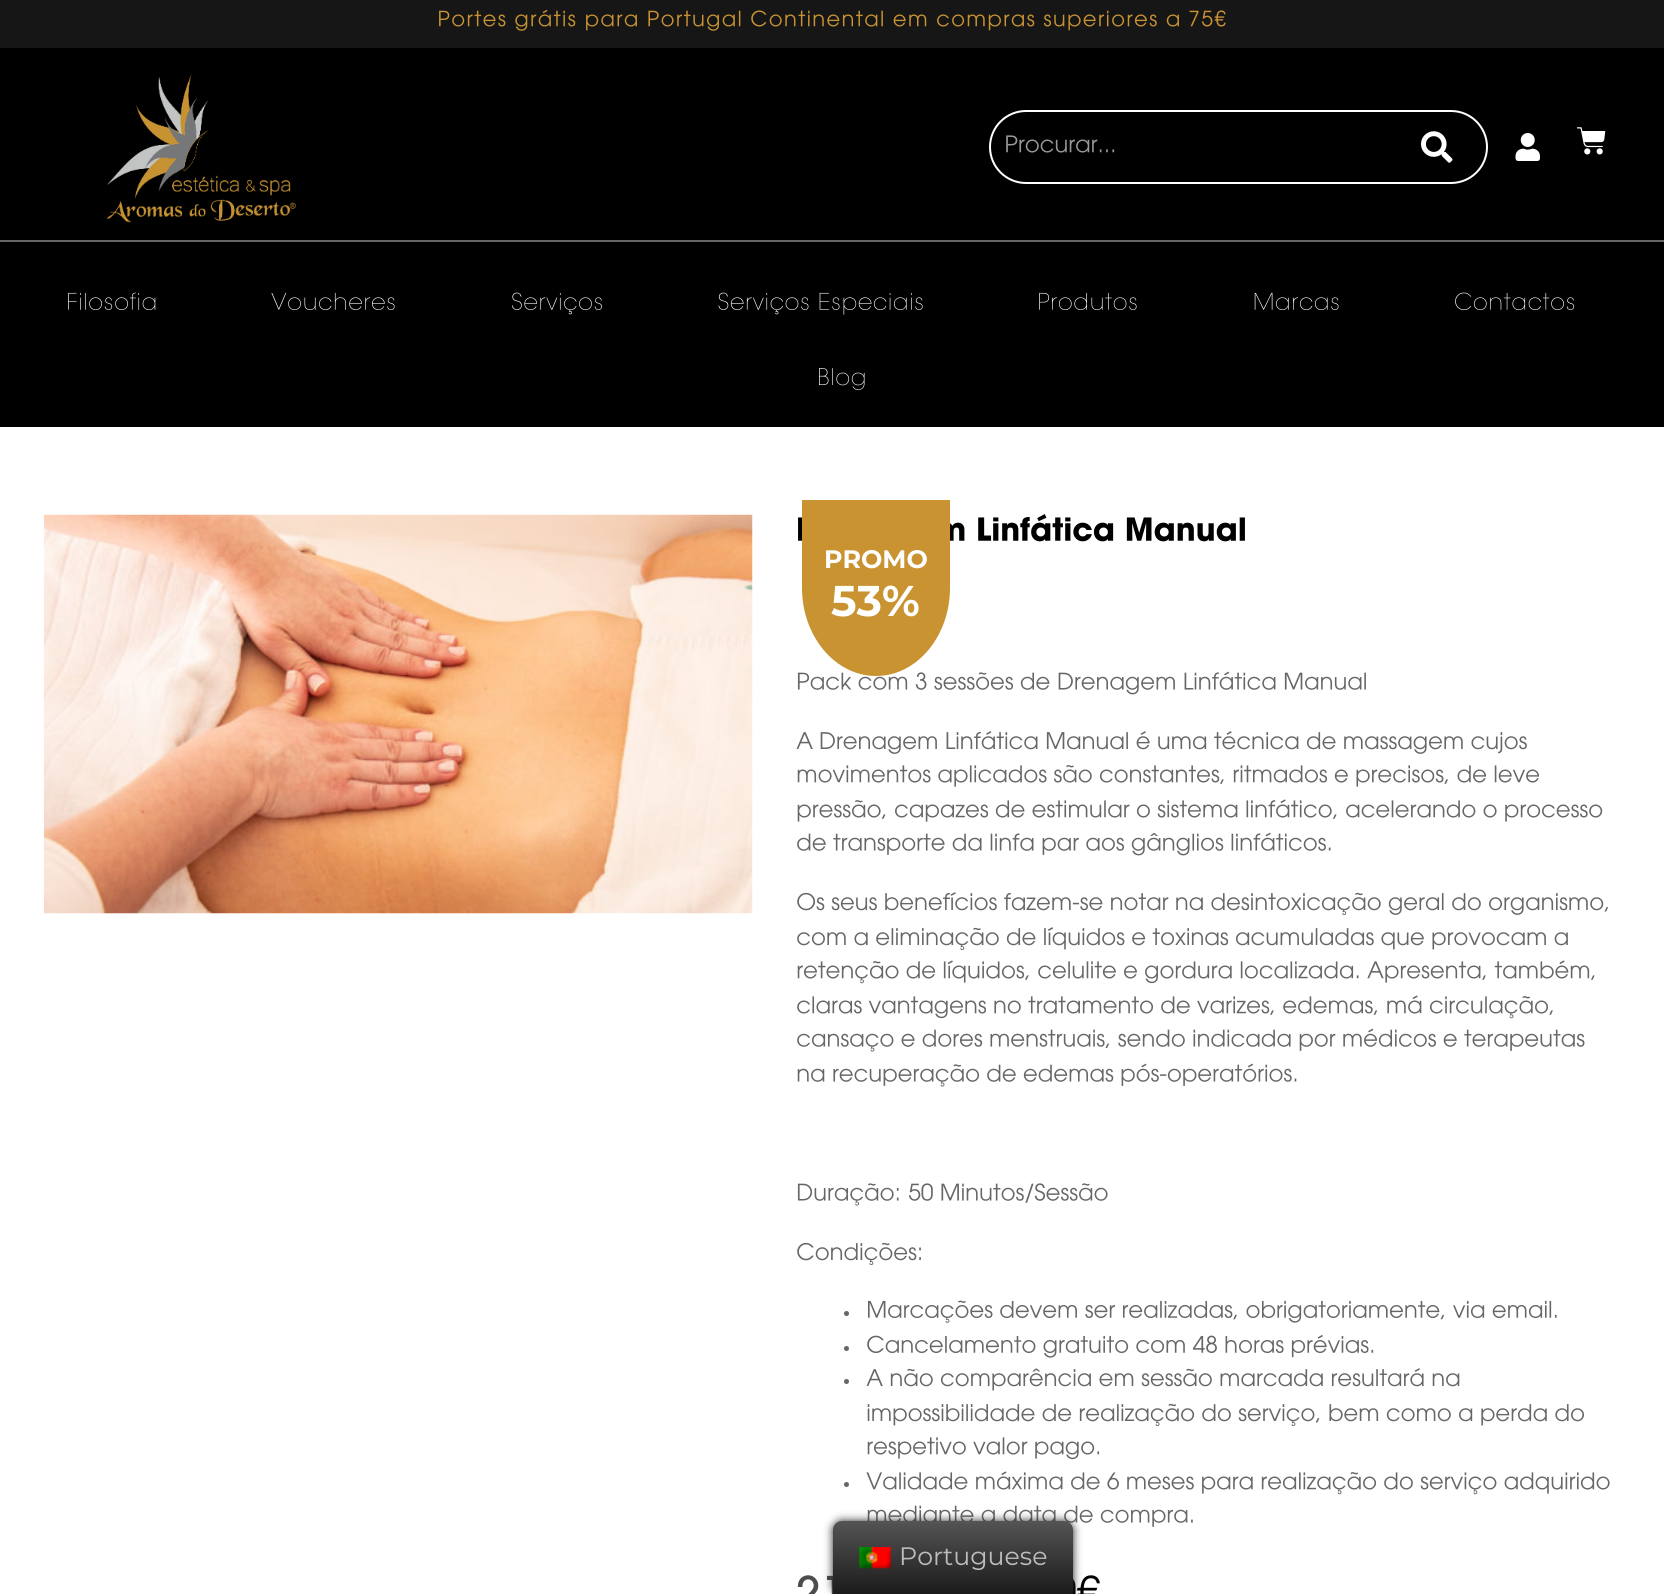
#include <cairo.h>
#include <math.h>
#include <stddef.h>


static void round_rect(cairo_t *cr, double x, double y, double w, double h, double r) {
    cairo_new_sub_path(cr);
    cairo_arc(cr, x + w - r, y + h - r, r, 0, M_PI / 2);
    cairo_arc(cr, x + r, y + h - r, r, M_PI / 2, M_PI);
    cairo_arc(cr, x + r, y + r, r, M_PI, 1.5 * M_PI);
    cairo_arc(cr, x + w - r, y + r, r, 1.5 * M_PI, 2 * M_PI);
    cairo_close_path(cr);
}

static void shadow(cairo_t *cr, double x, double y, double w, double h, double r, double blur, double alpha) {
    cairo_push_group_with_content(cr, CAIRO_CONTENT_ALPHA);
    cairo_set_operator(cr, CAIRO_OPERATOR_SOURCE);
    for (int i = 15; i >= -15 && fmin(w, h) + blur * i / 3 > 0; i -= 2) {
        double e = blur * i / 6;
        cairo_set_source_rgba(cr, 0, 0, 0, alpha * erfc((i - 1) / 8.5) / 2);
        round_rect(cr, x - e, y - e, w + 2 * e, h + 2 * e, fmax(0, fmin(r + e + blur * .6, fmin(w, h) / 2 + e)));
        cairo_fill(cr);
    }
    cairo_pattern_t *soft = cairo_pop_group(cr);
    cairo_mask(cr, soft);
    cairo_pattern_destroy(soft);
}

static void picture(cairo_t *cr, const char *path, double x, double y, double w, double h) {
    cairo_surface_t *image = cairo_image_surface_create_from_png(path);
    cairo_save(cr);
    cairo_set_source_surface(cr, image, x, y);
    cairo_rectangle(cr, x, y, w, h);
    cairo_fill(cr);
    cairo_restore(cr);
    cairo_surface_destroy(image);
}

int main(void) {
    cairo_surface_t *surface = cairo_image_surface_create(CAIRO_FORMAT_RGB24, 1664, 1594);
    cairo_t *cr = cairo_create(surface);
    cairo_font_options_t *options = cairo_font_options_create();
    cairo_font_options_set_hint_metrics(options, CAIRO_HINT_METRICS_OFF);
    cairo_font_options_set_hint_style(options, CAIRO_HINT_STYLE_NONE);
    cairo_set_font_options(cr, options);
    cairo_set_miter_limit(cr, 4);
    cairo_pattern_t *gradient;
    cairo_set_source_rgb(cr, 1, 1, 1);
    cairo_paint(cr);
    cairo_set_source_rgb(cr, 0.086, 0.086, 0.086);
    cairo_rectangle(cr, 0, 0, 1664, 48);
    cairo_fill(cr);
    picture(cr, "img1.png", 439, 9, 137, 22);
    picture(cr, "img2.png", 586, 10, 593, 21);
    picture(cr, "img3.png", 1189, 10, 37, 17);
    cairo_set_source_rgb(cr, 0, 0, 0);
    cairo_rectangle(cr, 0, 48, 1664, 379);
    cairo_fill(cr);
    picture(cr, "img4.png", 106, 74, 190, 149);
    round_rect(cr, 990, 111, 497, 72, 36);
    cairo_set_source_rgb(cr, 1, 1, 1);
    cairo_stroke(cr);
    picture(cr, "img5.png", 1006, 135, 109, 18);
    picture(cr, "img6.png", 1421, 131, 32, 32);
    picture(cr, "img7.png", 1515, 133, 25, 28);
    picture(cr, "img8.png", 1577, 127, 29, 28);
    cairo_set_source_rgb(cr, 0.4, 0.4, 0.4);
    cairo_rectangle(cr, 0, 240, 1664, 2);
    cairo_fill(cr);
    picture(cr, "img9.png", 68, 292, 88, 18);
    picture(cr, "img10.png", 271, 292, 124, 18);
    picture(cr, "img11.png", 512, 292, 90, 23);
    picture(cr, "img12.png", 718, 292, 205, 23);
    picture(cr, "img13.png", 1039, 292, 98, 18);
    picture(cr, "img14.png", 1254, 292, 85, 18);
    picture(cr, "img15.png", 1455, 292, 120, 18);
    picture(cr, "img16.png", 819, 368, 46, 23);
    picture(cr, "img17.png", 798, 514, 447, 28);
    picture(cr, "img18.png", 797, 672, 253, 18);
    picture(cr, "img19.png", 1058, 671, 308, 24);
    picture(cr, "img20.png", 796, 732, 17, 17);
    picture(cr, "img21.png", 820, 731, 308, 23);
    picture(cr, "img22.png", 1136, 731, 391, 23);
    picture(cr, "img23.png", 797, 765, 743, 22);
    picture(cr, "img24.png", 797, 799, 806, 23);
    picture(cr, "img25.png", 797, 832, 534, 24);
    picture(cr, "img26.png", 797, 892, 812, 23);
    picture(cr, "img27.png", 797, 927, 771, 23);
    picture(cr, "img28.png", 797, 960, 798, 24);
    picture(cr, "img29.png", 797, 995, 756, 24);
    picture(cr, "img30.png", 797, 1028, 788, 24);
    picture(cr, "img31.png", 797, 1063, 500, 24);
    picture(cr, "img32.png", 797, 1183, 102, 23);
    picture(cr, "img33.png", 908, 1183, 200, 20);
    picture(cr, "img34.png", 797, 1242, 124, 23);
    cairo_arc(cr, 846.5, 1313.5, 2.5, 0, 2 * M_PI);
    cairo_fill(cr);
    picture(cr, "img35.png", 868, 1300, 689, 23);
    cairo_arc(cr, 846.5, 1348.5, 2.5, 0, 2 * M_PI);
    cairo_fill(cr);
    picture(cr, "img36.png", 867, 1335, 507, 23);
    cairo_arc(cr, 846.5, 1381.5, 2.5, 0, 2 * M_PI);
    cairo_fill(cr);
    picture(cr, "img37.png", 866, 1368, 594, 23);
    picture(cr, "img38.png", 867, 1403, 717, 23);
    picture(cr, "img39.png", 867, 1437, 233, 23);
    cairo_arc(cr, 846.5, 1484.5, 2.5, 0, 2 * M_PI);
    cairo_fill(cr);
    picture(cr, "img40.png", 866, 1471, 744, 24);
    picture(cr, "img41.png", 867, 1505, 326, 22);
    picture(cr, "img42.png", 797, 1575, 36, 19);
    picture(cr, "img43.png", 1073, 1579, 3, 15);
    picture(cr, "img44.png", 1076, 1575, 24, 19);
    picture(cr, "img45.png", 43, 514, 710, 400);
    cairo_set_source_rgb(cr, 0.788, 0.576, 0.196);
    cairo_new_path(cr);
    cairo_move_to(cr, 802, 500);
    cairo_line_to(cr, 950, 500);
    cairo_line_to(cr, 950, 588);
    cairo_curve_to(cr, 950, 636, 917, 676, 876, 676);
    cairo_curve_to(cr, 835, 676, 802, 636, 802, 588);
    cairo_close_path(cr);
    cairo_fill(cr);
    cairo_select_font_face(cr, "Montserrat", CAIRO_FONT_SLANT_NORMAL, CAIRO_FONT_WEIGHT_BOLD);
    cairo_set_font_size(cr, 25.25);
    cairo_set_source_rgb(cr, 1, 1, 1);
    cairo_move_to(cr, 824, 568);
    cairo_show_text(cr, "PROMO");
    cairo_set_font_size(cr, 43);
    cairo_move_to(cr, 831, 616);
    cairo_show_text(cr, "53%");
    cairo_set_source_rgb(cr, 0.129, 0.129, 0.129);
    shadow(cr, 833, 1521, 240, 73, 9, 4.5, 1);
    gradient = cairo_pattern_create_linear(953, 1594, 953, 1521);
    cairo_pattern_add_color_stop_rgba(gradient, 0, 0.106, 0.106, 0.106, 1);
    cairo_pattern_add_color_stop_rgba(gradient, 1, 0.329, 0.329, 0.329, 1);
    cairo_set_source(cr, gradient);
    cairo_pattern_destroy(gradient);
    cairo_new_path(cr);
    cairo_move_to(cr, 842, 1521);
    cairo_line_to(cr, 1064, 1521);
    cairo_curve_to(cr, 1069, 1521, 1073, 1525, 1073, 1530);
    cairo_line_to(cr, 1073, 1594);
    cairo_line_to(cr, 833, 1594);
    cairo_line_to(cr, 833, 1530);
    cairo_curve_to(cr, 833, 1525, 837, 1521, 842, 1521);
    cairo_close_path(cr);
    cairo_fill(cr);
    picture(cr, "img46.png", 858, 1547, 33, 22);
    cairo_select_font_face(cr, "Montserrat", CAIRO_FONT_SLANT_NORMAL, CAIRO_FONT_WEIGHT_NORMAL);
    cairo_set_font_size(cr, 25.25);
    cairo_set_source_rgb(cr, 0.741, 0.741, 0.741);
    cairo_move_to(cr, 899, 1565);
    cairo_show_text(cr, "Portuguese");
    cairo_surface_write_to_png(surface, "page.png");
    cairo_font_options_destroy(options);
    cairo_destroy(cr);
    cairo_surface_destroy(surface);
    return 0;
}
